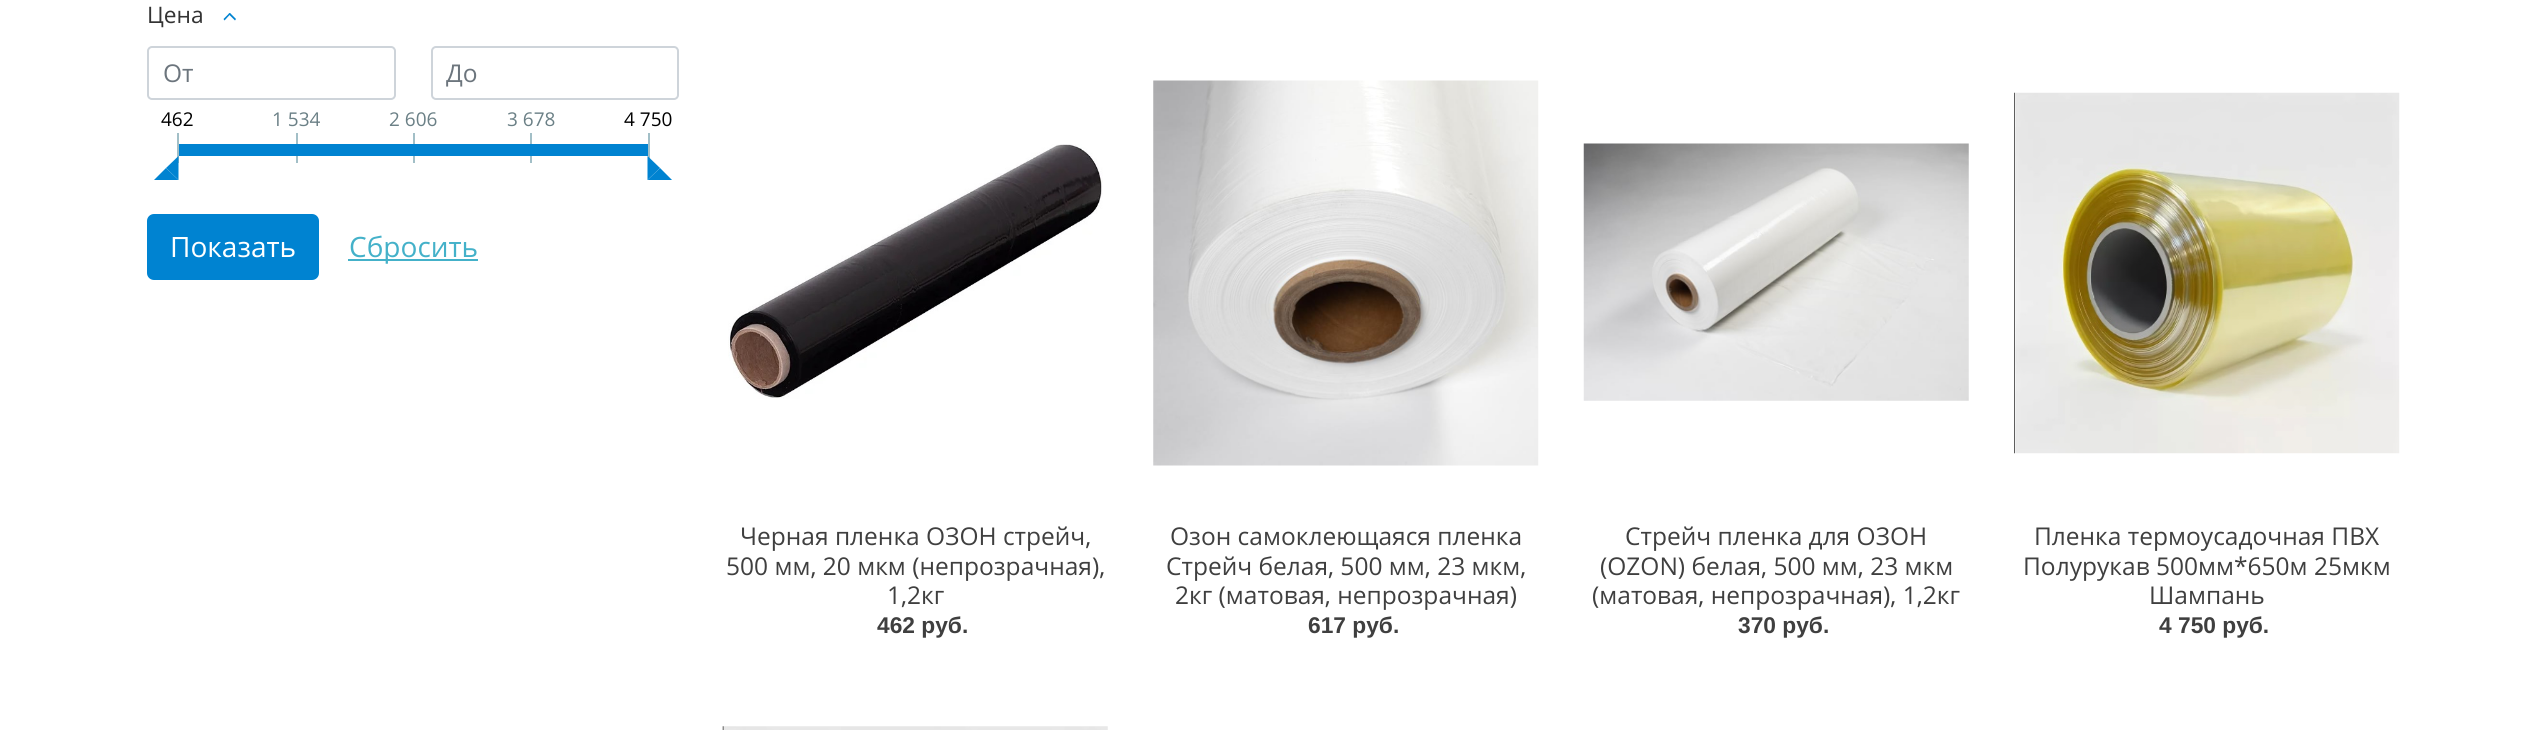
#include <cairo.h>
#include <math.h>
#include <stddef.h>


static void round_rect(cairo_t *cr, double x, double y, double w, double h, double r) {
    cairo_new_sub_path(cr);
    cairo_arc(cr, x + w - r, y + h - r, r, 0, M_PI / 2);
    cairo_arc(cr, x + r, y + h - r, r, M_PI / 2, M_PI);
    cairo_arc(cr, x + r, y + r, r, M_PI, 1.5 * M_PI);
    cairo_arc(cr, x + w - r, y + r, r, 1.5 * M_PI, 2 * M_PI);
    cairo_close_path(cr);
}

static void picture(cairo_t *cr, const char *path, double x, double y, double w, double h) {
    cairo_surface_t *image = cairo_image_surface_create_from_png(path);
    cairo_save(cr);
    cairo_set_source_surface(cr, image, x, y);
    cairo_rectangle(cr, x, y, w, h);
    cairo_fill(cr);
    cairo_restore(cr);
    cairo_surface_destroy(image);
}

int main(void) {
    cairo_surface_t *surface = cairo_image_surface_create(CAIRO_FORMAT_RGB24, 2547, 730);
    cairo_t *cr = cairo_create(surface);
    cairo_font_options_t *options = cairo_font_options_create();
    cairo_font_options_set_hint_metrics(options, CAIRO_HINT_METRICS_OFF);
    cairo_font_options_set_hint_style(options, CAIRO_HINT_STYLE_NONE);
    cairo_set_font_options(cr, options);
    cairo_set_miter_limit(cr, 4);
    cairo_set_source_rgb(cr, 1, 1, 1);
    cairo_paint(cr);
    cairo_select_font_face(cr, "Open Sans", CAIRO_FONT_SLANT_NORMAL, CAIRO_FONT_WEIGHT_NORMAL);
    cairo_set_font_size(cr, 22.75);
    cairo_set_source_rgb(cr, 0.2, 0.2, 0.2);
    cairo_move_to(cr, 147, 23);
    cairo_show_text(cr, "Цена");
    cairo_set_source_rgb(cr, 0, 0.514, 0.82);
    cairo_new_path(cr);
    cairo_move_to(cr, 223.5, 19);
    cairo_line_to(cr, 229.5, 13);
    cairo_line_to(cr, 230.5, 14);
    cairo_line_to(cr, 224.5, 20.5);
    cairo_close_path(cr);
    cairo_fill(cr);
    cairo_new_path(cr);
    cairo_move_to(cr, 230, 13);
    cairo_line_to(cr, 236, 19);
    cairo_line_to(cr, 235, 20.5);
    cairo_line_to(cr, 228.5, 14);
    cairo_close_path(cr);
    cairo_fill(cr);
    round_rect(cr, 148, 47, 247, 52, 4);
    cairo_set_source_rgb(cr, 0.808, 0.831, 0.855);
    cairo_stroke(cr);
    cairo_set_font_size(cr, 24.5);
    cairo_set_source_rgb(cr, 0.424, 0.459, 0.49);
    cairo_move_to(cr, 163, 82);
    cairo_show_text(cr, "От");
    round_rect(cr, 432, 47, 246, 52, 4);
    cairo_set_source_rgb(cr, 0.808, 0.831, 0.855);
    cairo_stroke(cr);
    cairo_set_source_rgb(cr, 0.424, 0.459, 0.49);
    cairo_move_to(cr, 446, 82);
    cairo_show_text(cr, "До");
    cairo_set_source_rgb(cr, 0.635, 0.749, 0.78);
    cairo_rectangle(cr, 177, 133, 2, 30);
    cairo_fill(cr);
    cairo_set_font_size(cr, 19);
    cairo_set_source_rgb(cr, 0, 0, 0);
    cairo_move_to(cr, 161, 126);
    cairo_show_text(cr, "462");
    cairo_set_source_rgb(cr, 0.635, 0.749, 0.78);
    cairo_rectangle(cr, 296, 133, 2, 30);
    cairo_fill(cr);
    cairo_set_source_rgb(cr, 0.42, 0.502, 0.525);
    cairo_move_to(cr, 272, 126);
    cairo_show_text(cr, "1 534");
    cairo_set_source_rgb(cr, 0.635, 0.749, 0.78);
    cairo_rectangle(cr, 413, 133, 2, 30);
    cairo_fill(cr);
    cairo_set_source_rgb(cr, 0.42, 0.502, 0.525);
    cairo_move_to(cr, 389, 126);
    cairo_show_text(cr, "2 606");
    cairo_set_source_rgb(cr, 0.635, 0.749, 0.78);
    cairo_rectangle(cr, 530, 133, 2, 30);
    cairo_fill(cr);
    cairo_set_source_rgb(cr, 0.42, 0.502, 0.525);
    cairo_move_to(cr, 507, 126);
    cairo_show_text(cr, "3 678");
    cairo_set_source_rgb(cr, 0.635, 0.749, 0.78);
    cairo_rectangle(cr, 648, 133, 2, 30);
    cairo_fill(cr);
    cairo_set_source_rgb(cr, 0, 0, 0);
    cairo_move_to(cr, 624, 126);
    cairo_show_text(cr, "4 750");
    cairo_set_source_rgb(cr, 0, 0.514, 0.82);
    cairo_rectangle(cr, 179, 144, 469, 12);
    cairo_fill(cr);
    cairo_new_path(cr);
    cairo_move_to(cr, 178.5, 156);
    cairo_line_to(cr, 178.5, 180);
    cairo_line_to(cr, 166, 168);
    cairo_close_path(cr);
    cairo_fill(cr);
    cairo_new_path(cr);
    cairo_move_to(cr, 178.5, 180);
    cairo_line_to(cr, 154, 180);
    cairo_line_to(cr, 166, 168);
    cairo_close_path(cr);
    cairo_fill(cr);
    cairo_new_path(cr);
    cairo_move_to(cr, 672, 180);
    cairo_line_to(cr, 647.5, 180);
    cairo_line_to(cr, 660, 168);
    cairo_close_path(cr);
    cairo_fill(cr);
    cairo_new_path(cr);
    cairo_move_to(cr, 647.5, 180);
    cairo_line_to(cr, 647.5, 156);
    cairo_line_to(cr, 660, 168);
    cairo_close_path(cr);
    cairo_fill(cr);
    round_rect(cr, 148, 215, 170, 64, 6);
    cairo_fill_preserve(cr);
    cairo_stroke(cr);
    cairo_set_font_size(cr, 28);
    cairo_set_source_rgb(cr, 1, 1, 1);
    cairo_move_to(cr, 170, 257);
    cairo_show_text(cr, "Показать");
    cairo_set_source_rgb(cr, 0.267, 0.694, 0.788);
    cairo_rectangle(cr, 348, 259, 130, 2);
    cairo_fill(cr);
    cairo_move_to(cr, 349, 257);
    cairo_show_text(cr, "Сбросить");
    picture(cr, "img1.png", 728, 144, 375, 255);
    cairo_set_font_size(cr, 24.5);
    cairo_set_source_rgb(cr, 0.247, 0.247, 0.247);
    cairo_move_to(cr, 740, 545);
    cairo_show_text(cr, "Черная пленка ОЗОН стрейч,");
    cairo_move_to(cr, 726, 575);
    cairo_show_text(cr, "500 мм, 20 мкм (непрозрачная),");
    cairo_move_to(cr, 887, 604);
    cairo_show_text(cr, "1,2кг");
    cairo_select_font_face(cr, "Liberation Sans", CAIRO_FONT_SLANT_NORMAL, CAIRO_FONT_WEIGHT_BOLD);
    cairo_set_font_size(cr, 22.75);
    cairo_move_to(cr, 877, 633);
    cairo_show_text(cr, "462 руб.");
    picture(cr, "img2.png", 1153, 80, 386, 386);
    cairo_select_font_face(cr, "Open Sans", CAIRO_FONT_SLANT_NORMAL, CAIRO_FONT_WEIGHT_NORMAL);
    cairo_set_font_size(cr, 24.5);
    cairo_move_to(cr, 1170, 545);
    cairo_show_text(cr, "Озон самоклеющаяся пленка");
    cairo_move_to(cr, 1166, 575);
    cairo_show_text(cr, "Стрейч белая, 500 мм, 23 мкм,");
    cairo_move_to(cr, 1175, 604);
    cairo_show_text(cr, "2кг (матовая, непрозрачная)");
    cairo_select_font_face(cr, "Liberation Sans", CAIRO_FONT_SLANT_NORMAL, CAIRO_FONT_WEIGHT_BOLD);
    cairo_set_font_size(cr, 22.75);
    cairo_move_to(cr, 1308, 633);
    cairo_show_text(cr, "617 руб.");
    picture(cr, "img3.png", 1583, 143, 386, 258);
    cairo_select_font_face(cr, "Open Sans", CAIRO_FONT_SLANT_NORMAL, CAIRO_FONT_WEIGHT_NORMAL);
    cairo_set_font_size(cr, 24.5);
    cairo_move_to(cr, 1625, 545);
    cairo_show_text(cr, "Стрейч пленка для ОЗОН");
    cairo_move_to(cr, 1600, 575);
    cairo_show_text(cr, "(OZON) белая, 500 мм, 23 мкм");
    cairo_move_to(cr, 1592, 604);
    cairo_show_text(cr, "(матовая, непрозрачная), 1,2кг");
    cairo_select_font_face(cr, "Liberation Sans", CAIRO_FONT_SLANT_NORMAL, CAIRO_FONT_WEIGHT_BOLD);
    cairo_set_font_size(cr, 22.75);
    cairo_move_to(cr, 1738, 633);
    cairo_show_text(cr, "370 руб.");
    picture(cr, "img4.png", 2014, 92, 386, 362);
    cairo_select_font_face(cr, "Open Sans", CAIRO_FONT_SLANT_NORMAL, CAIRO_FONT_WEIGHT_NORMAL);
    cairo_set_font_size(cr, 24.5);
    cairo_move_to(cr, 2034, 545);
    cairo_show_text(cr, "Пленка термоусадочная ПВХ");
    cairo_move_to(cr, 2023, 575);
    cairo_show_text(cr, "Полурукав 500мм*650м 25мкм");
    cairo_move_to(cr, 2149, 604);
    cairo_show_text(cr, "Шампань");
    cairo_select_font_face(cr, "Liberation Sans", CAIRO_FONT_SLANT_NORMAL, CAIRO_FONT_WEIGHT_BOLD);
    cairo_set_font_size(cr, 22.75);
    cairo_move_to(cr, 2159, 633);
    cairo_show_text(cr, "4 750 руб.");
    picture(cr, "img5.png", 722, 726, 386, 4);
    cairo_surface_write_to_png(surface, "page.png");
    cairo_font_options_destroy(options);
    cairo_destroy(cr);
    cairo_surface_destroy(surface);
    return 0;
}
